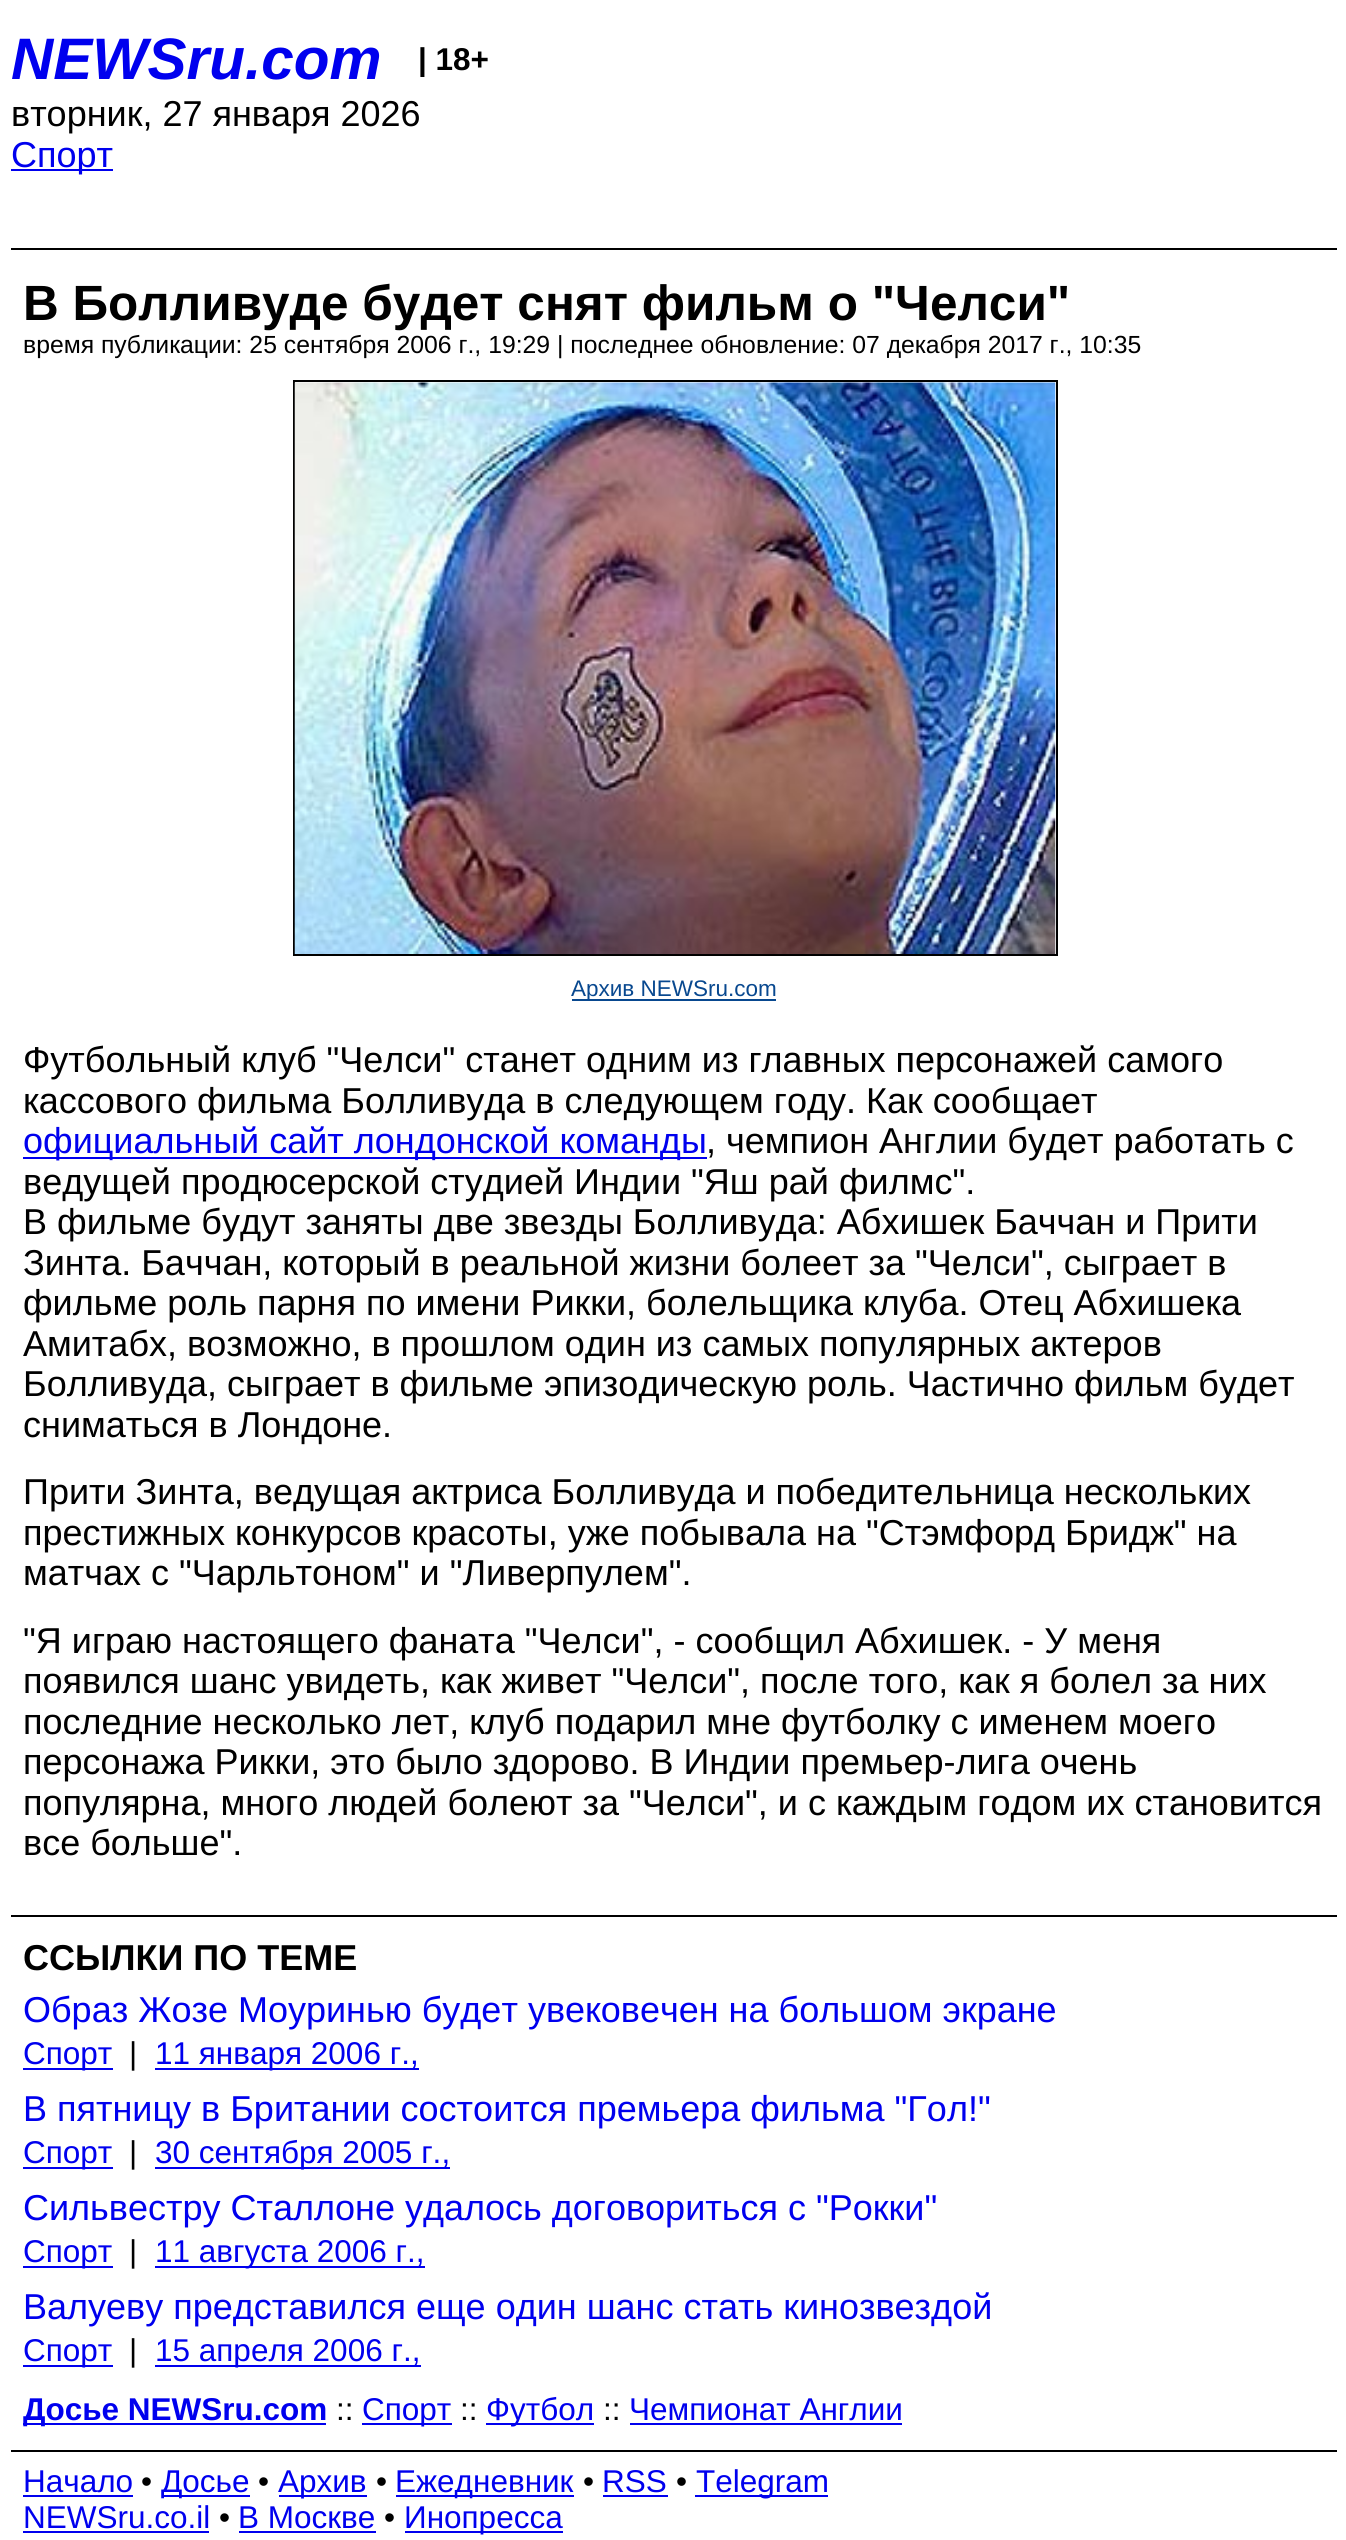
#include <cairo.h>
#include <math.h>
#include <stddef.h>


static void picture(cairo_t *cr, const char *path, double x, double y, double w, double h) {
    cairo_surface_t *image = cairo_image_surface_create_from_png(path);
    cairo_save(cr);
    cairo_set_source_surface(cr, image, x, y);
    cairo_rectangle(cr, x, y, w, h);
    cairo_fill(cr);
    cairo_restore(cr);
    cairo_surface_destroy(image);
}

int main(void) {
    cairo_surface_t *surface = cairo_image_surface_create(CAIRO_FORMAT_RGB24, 1346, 2540);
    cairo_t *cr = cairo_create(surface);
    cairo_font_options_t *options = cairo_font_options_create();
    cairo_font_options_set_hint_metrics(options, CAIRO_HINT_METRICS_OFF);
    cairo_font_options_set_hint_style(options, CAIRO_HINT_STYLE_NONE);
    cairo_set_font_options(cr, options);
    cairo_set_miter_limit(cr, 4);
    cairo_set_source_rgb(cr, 1, 1, 1);
    cairo_paint(cr);
    cairo_set_source_rgb(cr, 0, 0, 0);
    cairo_rectangle(cr, 11, 248, 1326, 2);
    cairo_fill(cr);
    cairo_select_font_face(cr, "Liberation Sans", CAIRO_FONT_SLANT_ITALIC, CAIRO_FONT_WEIGHT_BOLD);
    cairo_set_font_size(cr, 58.5);
    cairo_set_source_rgb(cr, 0, 0, 0.933);
    cairo_move_to(cr, 11, 79);
    cairo_show_text(cr, "NEWSru.com");
    cairo_select_font_face(cr, "Liberation Sans", CAIRO_FONT_SLANT_NORMAL, CAIRO_FONT_WEIGHT_BOLD);
    cairo_set_font_size(cr, 31.5);
    cairo_set_source_rgb(cr, 0, 0, 0);
    cairo_move_to(cr, 418, 70);
    cairo_show_text(cr, "| 18+");
    cairo_select_font_face(cr, "Liberation Sans", CAIRO_FONT_SLANT_NORMAL, CAIRO_FONT_WEIGHT_NORMAL);
    cairo_set_font_size(cr, 36);
    cairo_move_to(cr, 11, 126);
    cairo_show_text(cr, "вторник, 27 января 2026");
    cairo_set_source_rgb(cr, 0, 0, 0.933);
    cairo_rectangle(cr, 11, 169, 102, 2);
    cairo_fill(cr);
    cairo_move_to(cr, 11, 167);
    cairo_show_text(cr, "Спорт");
    cairo_set_source_rgb(cr, 0, 0, 0);
    cairo_rectangle(cr, 11, 1915, 1326, 2);
    cairo_fill(cr);
    cairo_select_font_face(cr, "Liberation Sans", CAIRO_FONT_SLANT_NORMAL, CAIRO_FONT_WEIGHT_BOLD);
    cairo_set_font_size(cr, 49.5);
    cairo_move_to(cr, 23, 320);
    cairo_show_text(cr, "В Болливуде будет снят фильм о \"Челси\"");
    cairo_select_font_face(cr, "Liberation Sans", CAIRO_FONT_SLANT_NORMAL, CAIRO_FONT_WEIGHT_NORMAL);
    cairo_set_font_size(cr, 24.75);
    cairo_move_to(cr, 23, 353);
    cairo_show_text(cr, "время публикации: 25 сентября 2006 г., 19:29 | последнее обновление: 07 декабря 2017 г., 10:35");
    cairo_rectangle(cr, 294, 381, 763, 574);
    cairo_stroke(cr);
    picture(cr, "img1.png", 294, 382, 762, 572);
    cairo_set_source_rgb(cr, 0.035, 0.282, 0.561);
    cairo_rectangle(cr, 572, 999, 204, 2);
    cairo_fill(cr);
    cairo_set_font_size(cr, 22.5);
    cairo_move_to(cr, 571, 996);
    cairo_show_text(cr, "Архив NEWSru.com");
    cairo_set_font_size(cr, 36);
    cairo_set_source_rgb(cr, 0, 0, 0);
    cairo_move_to(cr, 23, 1072);
    cairo_show_text(cr, "Футбольный клуб \"Челси\" станет одним из главных персонажей самого");
    cairo_move_to(cr, 23, 1113);
    cairo_show_text(cr, "кассового фильма Болливуда в следующем году. Как сообщает");
    cairo_set_source_rgb(cr, 0, 0, 0.933);
    cairo_rectangle(cr, 23, 1157, 684, 2);
    cairo_fill(cr);
    cairo_move_to(cr, 23, 1153);
    cairo_show_text(cr, "официальный сайт лондонской команды");
    cairo_set_source_rgb(cr, 0, 0, 0);
    cairo_move_to(cr, 706, 1153);
    cairo_show_text(cr, ", чемпион Англии будет работать с");
    cairo_move_to(cr, 23, 1194);
    cairo_show_text(cr, "ведущей продюсерской студией Индии \"Яш рай филмс\".");
    cairo_move_to(cr, 23, 1234);
    cairo_show_text(cr, "В фильме будут заняты две звезды Болливуда: Абхишек Баччан и Прити");
    cairo_move_to(cr, 23, 1275);
    cairo_show_text(cr, "Зинта. Баччан, который в реальной жизни болеет за \"Челси\", сыграет в");
    cairo_move_to(cr, 23, 1315);
    cairo_show_text(cr, "фильме роль парня по имени Рикки, болельщика клуба. Отец Абхишека");
    cairo_move_to(cr, 23, 1356);
    cairo_show_text(cr, "Амитабх, возможно, в прошлом один из самых популярных актеров");
    cairo_move_to(cr, 23, 1396);
    cairo_show_text(cr, "Болливуда, сыграет в фильме эпизодическую роль. Частично фильм будет");
    cairo_move_to(cr, 23, 1437);
    cairo_show_text(cr, "сниматься в Лондоне.");
    cairo_move_to(cr, 23, 1504);
    cairo_show_text(cr, "Прити Зинта, ведущая актриса Болливуда и победительница нескольких");
    cairo_move_to(cr, 23, 1545);
    cairo_show_text(cr, "престижных конкурсов красоты, уже побывала на \"Стэмфорд Бридж\" на");
    cairo_move_to(cr, 23, 1585);
    cairo_show_text(cr, "матчах с \"Чарльтоном\" и \"Ливерпулем\".");
    cairo_move_to(cr, 23, 1653);
    cairo_show_text(cr, "\"Я играю настоящего фаната \"Челси\", - сообщил Абхишек. - У меня");
    cairo_move_to(cr, 23, 1693);
    cairo_show_text(cr, "появился шанс увидеть, как живет \"Челси\", после того, как я болел за них");
    cairo_move_to(cr, 23, 1734);
    cairo_show_text(cr, "последние несколько лет, клуб подарил мне футболку с именем моего");
    cairo_move_to(cr, 23, 1774);
    cairo_show_text(cr, "персонажа Рикки, это было здорово. В Индии премьер-лига очень");
    cairo_move_to(cr, 23, 1815);
    cairo_show_text(cr, "популярна, много людей болеют за \"Челси\", и с каждым годом их становится");
    cairo_move_to(cr, 23, 1855);
    cairo_show_text(cr, "все больше\".");
    cairo_select_font_face(cr, "Liberation Sans", CAIRO_FONT_SLANT_NORMAL, CAIRO_FONT_WEIGHT_BOLD);
    cairo_move_to(cr, 23, 1970);
    cairo_show_text(cr, "ССЫЛКИ ПО ТЕМЕ");
    cairo_select_font_face(cr, "Liberation Sans", CAIRO_FONT_SLANT_NORMAL, CAIRO_FONT_WEIGHT_NORMAL);
    cairo_set_source_rgb(cr, 0, 0, 0.933);
    cairo_move_to(cr, 23, 2022);
    cairo_show_text(cr, "Образ Жозе Моуринью будет увековечен на большом экране");
    cairo_rectangle(cr, 23, 2068, 90, 2);
    cairo_fill(cr);
    cairo_set_font_size(cr, 31.5);
    cairo_move_to(cr, 23, 2064);
    cairo_show_text(cr, "Спорт");
    cairo_set_source_rgb(cr, 0, 0, 0);
    cairo_move_to(cr, 129, 2064);
    cairo_show_text(cr, "|");
    cairo_set_source_rgb(cr, 0, 0, 0.933);
    cairo_rectangle(cr, 155, 2068, 264, 2);
    cairo_fill(cr);
    cairo_move_to(cr, 155, 2064);
    cairo_show_text(cr, "11 января 2006 г.,");
    cairo_set_font_size(cr, 36);
    cairo_move_to(cr, 23, 2121);
    cairo_show_text(cr, "В пятницу в Британии состоится премьера фильма \"Гол!\"");
    cairo_rectangle(cr, 23, 2167, 90, 2);
    cairo_fill(cr);
    cairo_set_font_size(cr, 31.5);
    cairo_move_to(cr, 23, 2163);
    cairo_show_text(cr, "Спорт");
    cairo_set_source_rgb(cr, 0, 0, 0);
    cairo_move_to(cr, 129, 2163);
    cairo_show_text(cr, "|");
    cairo_set_source_rgb(cr, 0, 0, 0.933);
    cairo_rectangle(cr, 155, 2167, 295, 2);
    cairo_fill(cr);
    cairo_move_to(cr, 155, 2163);
    cairo_show_text(cr, "30 сентября 2005 г.,");
    cairo_set_font_size(cr, 36);
    cairo_move_to(cr, 23, 2220);
    cairo_show_text(cr, "Сильвестру Сталлоне удалось договориться с \"Рокки\"");
    cairo_rectangle(cr, 23, 2266, 90, 2);
    cairo_fill(cr);
    cairo_set_font_size(cr, 31.5);
    cairo_move_to(cr, 23, 2262);
    cairo_show_text(cr, "Спорт");
    cairo_set_source_rgb(cr, 0, 0, 0);
    cairo_move_to(cr, 129, 2262);
    cairo_show_text(cr, "|");
    cairo_set_source_rgb(cr, 0, 0, 0.933);
    cairo_rectangle(cr, 155, 2266, 270, 2);
    cairo_fill(cr);
    cairo_move_to(cr, 155, 2262);
    cairo_show_text(cr, "11 августа 2006 г.,");
    cairo_set_font_size(cr, 36);
    cairo_move_to(cr, 23, 2319);
    cairo_show_text(cr, "Валуеву представился еще один шанс стать кинозвездой");
    cairo_rectangle(cr, 23, 2365, 90, 2);
    cairo_fill(cr);
    cairo_set_font_size(cr, 31.5);
    cairo_move_to(cr, 23, 2361);
    cairo_show_text(cr, "Спорт");
    cairo_set_source_rgb(cr, 0, 0, 0);
    cairo_move_to(cr, 129, 2361);
    cairo_show_text(cr, "|");
    cairo_set_source_rgb(cr, 0, 0, 0.933);
    cairo_rectangle(cr, 155, 2365, 266, 2);
    cairo_fill(cr);
    cairo_move_to(cr, 155, 2361);
    cairo_show_text(cr, "15 апреля 2006 г.,");
    cairo_rectangle(cr, 23, 2423, 303, 2);
    cairo_fill(cr);
    cairo_select_font_face(cr, "Liberation Sans", CAIRO_FONT_SLANT_NORMAL, CAIRO_FONT_WEIGHT_BOLD);
    cairo_move_to(cr, 23, 2420);
    cairo_show_text(cr, "Досье NEWSru.com");
    cairo_select_font_face(cr, "Liberation Sans", CAIRO_FONT_SLANT_NORMAL, CAIRO_FONT_WEIGHT_NORMAL);
    cairo_set_source_rgb(cr, 0, 0, 0);
    cairo_move_to(cr, 336, 2420);
    cairo_show_text(cr, "::");
    cairo_set_source_rgb(cr, 0, 0, 0.933);
    cairo_rectangle(cr, 362, 2423, 90, 2);
    cairo_fill(cr);
    cairo_move_to(cr, 362, 2420);
    cairo_show_text(cr, "Спорт");
    cairo_set_source_rgb(cr, 0, 0, 0);
    cairo_move_to(cr, 460, 2420);
    cairo_show_text(cr, "::");
    cairo_set_source_rgb(cr, 0, 0, 0.933);
    cairo_rectangle(cr, 486, 2423, 108, 2);
    cairo_fill(cr);
    cairo_move_to(cr, 486, 2420);
    cairo_show_text(cr, "Футбол");
    cairo_set_source_rgb(cr, 0, 0, 0);
    cairo_move_to(cr, 603, 2420);
    cairo_show_text(cr, "::");
    cairo_set_source_rgb(cr, 0, 0, 0.933);
    cairo_move_to(cr, 629, 2420);
    cairo_show_text(cr, "Чемпионат Англии");
    cairo_rectangle(cr, 630, 2423, 272, 2);
    cairo_fill(cr);
    cairo_set_source_rgb(cr, 0, 0, 0);
    cairo_rectangle(cr, 11, 2450, 1326, 2);
    cairo_fill(cr);
    cairo_set_source_rgb(cr, 0, 0, 0.933);
    cairo_move_to(cr, 23, 2492);
    cairo_show_text(cr, "Начало");
    cairo_rectangle(cr, 23, 2495, 110, 2);
    cairo_fill(cr);
    cairo_set_source_rgb(cr, 0, 0, 0);
    cairo_move_to(cr, 141, 2492);
    cairo_show_text(cr, "•");
    cairo_set_source_rgb(cr, 0, 0, 0.933);
    cairo_rectangle(cr, 162, 2495, 88, 2);
    cairo_fill(cr);
    cairo_move_to(cr, 161, 2492);
    cairo_show_text(cr, "Досье");
    cairo_set_source_rgb(cr, 0, 0, 0);
    cairo_move_to(cr, 258, 2492);
    cairo_show_text(cr, "•");
    cairo_set_source_rgb(cr, 0, 0, 0.933);
    cairo_rectangle(cr, 279, 2495, 88, 2);
    cairo_fill(cr);
    cairo_move_to(cr, 278, 2492);
    cairo_show_text(cr, "Архив");
    cairo_set_source_rgb(cr, 0, 0, 0);
    cairo_move_to(cr, 376, 2492);
    cairo_show_text(cr, "•");
    cairo_set_source_rgb(cr, 0, 0, 0.933);
    cairo_rectangle(cr, 396, 2495, 178, 2);
    cairo_fill(cr);
    cairo_move_to(cr, 395, 2492);
    cairo_show_text(cr, "Ежедневник");
    cairo_set_source_rgb(cr, 0, 0, 0);
    cairo_move_to(cr, 583, 2492);
    cairo_show_text(cr, "•");
    cairo_set_source_rgb(cr, 0, 0, 0.933);
    cairo_move_to(cr, 602, 2492);
    cairo_show_text(cr, "RSS");
    cairo_rectangle(cr, 603, 2495, 65, 2);
    cairo_fill(cr);
    cairo_set_source_rgb(cr, 0, 0, 0);
    cairo_move_to(cr, 676, 2492);
    cairo_show_text(cr, "•");
    cairo_set_source_rgb(cr, 0, 0, 0.933);
    cairo_rectangle(cr, 695, 2495, 133, 2);
    cairo_fill(cr);
    cairo_move_to(cr, 696, 2492);
    cairo_show_text(cr, "Telegram");
    cairo_move_to(cr, 23, 2528);
    cairo_show_text(cr, "NEWSru.co.il");
    cairo_rectangle(cr, 23, 2531, 186, 2);
    cairo_fill(cr);
    cairo_set_source_rgb(cr, 0, 0, 0);
    cairo_move_to(cr, 219, 2528);
    cairo_show_text(cr, "•");
    cairo_set_source_rgb(cr, 0, 0, 0.933);
    cairo_move_to(cr, 238, 2528);
    cairo_show_text(cr, "В Москве");
    cairo_rectangle(cr, 239, 2531, 137, 2);
    cairo_fill(cr);
    cairo_set_source_rgb(cr, 0, 0, 0);
    cairo_move_to(cr, 384, 2528);
    cairo_show_text(cr, "•");
    cairo_set_source_rgb(cr, 0, 0, 0.933);
    cairo_rectangle(cr, 405, 2531, 158, 2);
    cairo_fill(cr);
    cairo_move_to(cr, 404, 2528);
    cairo_show_text(cr, "Инопресса");
    cairo_surface_write_to_png(surface, "page.png");
    cairo_font_options_destroy(options);
    cairo_destroy(cr);
    cairo_surface_destroy(surface);
    return 0;
}
